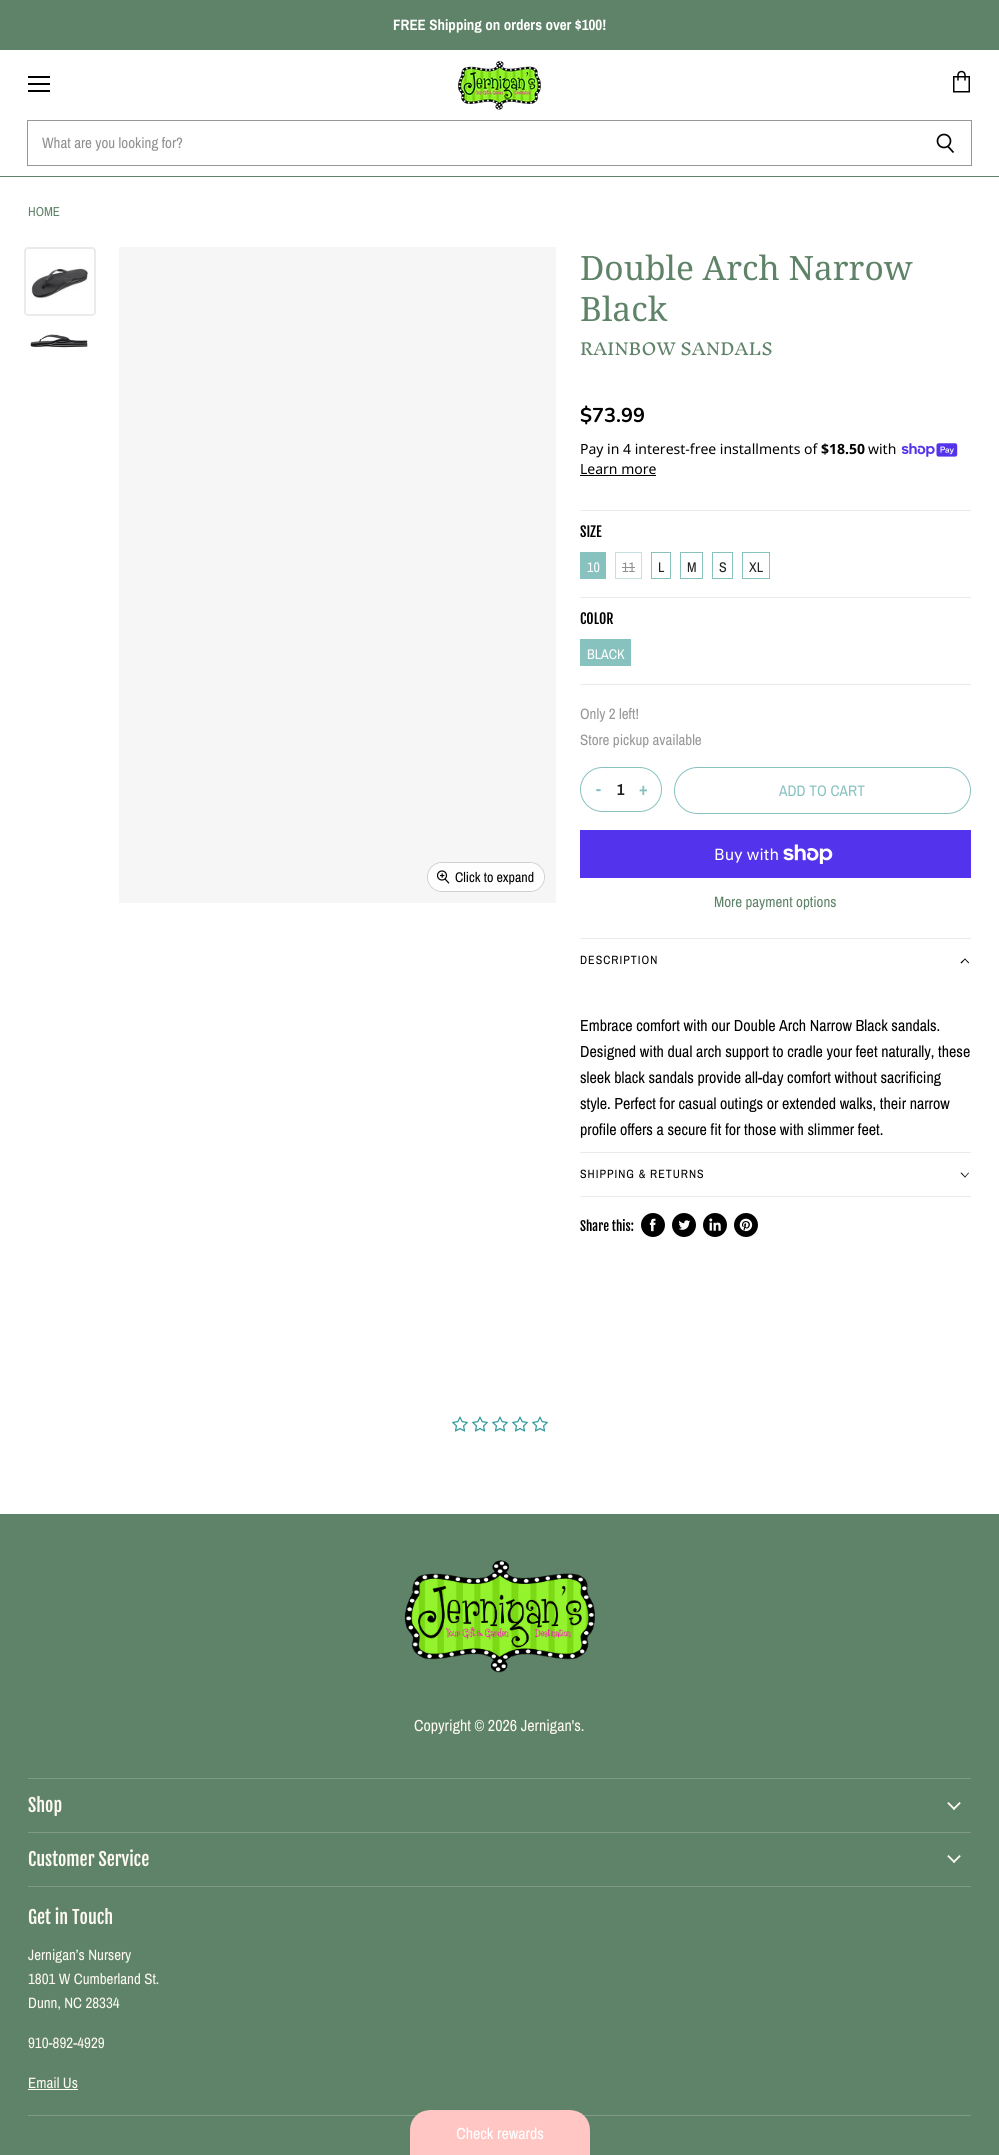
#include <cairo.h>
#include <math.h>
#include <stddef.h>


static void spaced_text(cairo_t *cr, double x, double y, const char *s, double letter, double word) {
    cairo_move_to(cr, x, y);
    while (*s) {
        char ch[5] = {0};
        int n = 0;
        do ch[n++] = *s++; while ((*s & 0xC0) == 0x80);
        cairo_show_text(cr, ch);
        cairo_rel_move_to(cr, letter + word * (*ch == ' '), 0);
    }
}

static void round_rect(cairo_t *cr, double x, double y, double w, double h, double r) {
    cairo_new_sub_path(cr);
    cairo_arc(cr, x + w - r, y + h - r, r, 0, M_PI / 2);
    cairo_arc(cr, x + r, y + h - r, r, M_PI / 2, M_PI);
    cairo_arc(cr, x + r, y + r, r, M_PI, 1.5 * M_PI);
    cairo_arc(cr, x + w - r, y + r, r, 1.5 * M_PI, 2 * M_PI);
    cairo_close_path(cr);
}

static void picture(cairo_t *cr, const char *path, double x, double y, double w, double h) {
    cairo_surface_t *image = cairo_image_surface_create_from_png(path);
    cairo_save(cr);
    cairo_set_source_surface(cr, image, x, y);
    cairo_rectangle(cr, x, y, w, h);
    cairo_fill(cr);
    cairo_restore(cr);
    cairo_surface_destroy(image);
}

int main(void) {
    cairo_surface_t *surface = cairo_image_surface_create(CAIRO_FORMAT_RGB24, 999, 2155);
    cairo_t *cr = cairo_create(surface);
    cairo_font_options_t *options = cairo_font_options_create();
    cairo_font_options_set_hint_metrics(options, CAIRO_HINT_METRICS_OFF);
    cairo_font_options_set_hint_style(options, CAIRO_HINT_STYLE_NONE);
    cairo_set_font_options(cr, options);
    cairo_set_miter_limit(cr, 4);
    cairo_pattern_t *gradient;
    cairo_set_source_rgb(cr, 1, 1, 1);
    cairo_paint(cr);
    cairo_set_source_rgb(cr, 0.373, 0.514, 0.408);
    cairo_rectangle(cr, 0, 0, 999, 50);
    cairo_fill(cr);
    cairo_select_font_face(cr, "Archivo Narrow", CAIRO_FONT_SLANT_NORMAL, CAIRO_FONT_WEIGHT_BOLD);
    cairo_set_font_size(cr, 15);
    cairo_set_source_rgb(cr, 1, 1, 1);
    cairo_move_to(cr, 393, 30);
    cairo_show_text(cr, "FREE Shipping on orders over $100!");
    cairo_set_source_rgb(cr, 0.373, 0.514, 0.408);
    cairo_rectangle(cr, 0, 176, 999, 1);
    cairo_fill(cr);
    cairo_set_source_rgb(cr, 0, 0, 0);
    cairo_rectangle(cr, 28, 76, 22, 2);
    cairo_fill(cr);
    cairo_rectangle(cr, 28, 83, 22, 2);
    cairo_fill(cr);
    cairo_rectangle(cr, 28, 90, 22, 2);
    cairo_fill(cr);
    picture(cr, "img1.png", 953, 70, 17, 23);
    picture(cr, "img2.png", 457, 60, 84, 50);
    cairo_set_source_rgb(cr, 0.592, 0.592, 0.592);
    cairo_rectangle(cr, 27, 120, 945, 1);
    cairo_fill(cr);
    cairo_rectangle(cr, 971, 120, 1, 46);
    cairo_fill(cr);
    cairo_rectangle(cr, 27, 165, 945, 1);
    cairo_fill(cr);
    cairo_new_path(cr);
    cairo_move_to(cr, 953.5, 152.5);
    cairo_line_to(cr, 948, 146.5);
    cairo_set_source_rgb(cr, 0, 0, 0);
    cairo_set_line_width(cr, 1.7);
    cairo_stroke(cr);
    cairo_arc(cr, 944, 141, 6.5, 0, 2 * M_PI);
    cairo_stroke(cr);
    cairo_set_source_rgb(cr, 0.592, 0.592, 0.592);
    cairo_rectangle(cr, 27, 120, 1, 46);
    cairo_fill(cr);
    cairo_select_font_face(cr, "Archivo Narrow", CAIRO_FONT_SLANT_NORMAL, CAIRO_FONT_WEIGHT_NORMAL);
    cairo_set_source_rgb(cr, 0.565, 0.565, 0.565);
    cairo_move_to(cr, 42, 148);
    cairo_show_text(cr, "What are you looking for?");
    cairo_set_font_size(cr, 13);
    cairo_set_source_rgb(cr, 0.373, 0.514, 0.408);
    cairo_move_to(cr, 28, 216);
    cairo_show_text(cr, "HOME");
    round_rect(cr, 25, 248, 70, 67, 3);
    cairo_set_source_rgb(cr, 0.918, 0.918, 0.918);
    cairo_set_line_width(cr, 2);
    cairo_stroke(cr);
    picture(cr, "img3.png", 31, 267, 59, 32);
    picture(cr, "img4.png", 30, 334, 58, 14);
    cairo_set_source_rgb(cr, 0.961, 0.961, 0.961);
    cairo_rectangle(cr, 119, 247, 437, 656);
    cairo_fill(cr);
    round_rect(cr, 427.5, 862.5, 117, 29, 14.5);
    cairo_set_source_rgb(cr, 0.816, 0.816, 0.816);
    cairo_set_line_width(cr, 1);
    cairo_stroke(cr);
    cairo_set_source_rgba(cr, 1, 1, 1, 0.9);
    round_rect(cr, 428, 863, 116, 28, 14);
    cairo_fill(cr);
    picture(cr, "img5.png", 437, 870, 13, 14);
    cairo_set_font_size(cr, 14);
    cairo_set_source_rgb(cr, 0, 0, 0);
    cairo_move_to(cr, 455, 882);
    cairo_show_text(cr, "Click to expand");
    cairo_select_font_face(cr, "Noto Serif", CAIRO_FONT_SLANT_NORMAL, CAIRO_FONT_WEIGHT_NORMAL);
    cairo_set_font_size(cr, 33.5);
    cairo_set_source_rgb(cr, 0.373, 0.514, 0.408);
    cairo_move_to(cr, 580, 280);
    cairo_show_text(cr, "Double Arch Narrow");
    cairo_move_to(cr, 580, 321);
    cairo_show_text(cr, "Black");
    cairo_select_font_face(cr, "Inknut Antiqua", CAIRO_FONT_SLANT_NORMAL, CAIRO_FONT_WEIGHT_NORMAL);
    cairo_set_font_size(cr, 16);
    spaced_text(cr, 580, 355, "RAINBOW SANDALS", 0.2, 0);
    cairo_select_font_face(cr, "Nunito", CAIRO_FONT_SLANT_NORMAL, CAIRO_FONT_WEIGHT_BOLD);
    cairo_set_font_size(cr, 20);
    cairo_set_source_rgb(cr, 0, 0, 0);
    cairo_move_to(cr, 580, 422);
    cairo_show_text(cr, "$73.99");
    cairo_select_font_face(cr, "Noto Sans", CAIRO_FONT_SLANT_NORMAL, CAIRO_FONT_WEIGHT_NORMAL);
    cairo_set_font_size(cr, 14);
    cairo_move_to(cr, 580, 454);
    cairo_show_text(cr, "Pay in 4 interest-free installments of");
    cairo_select_font_face(cr, "Noto Sans", CAIRO_FONT_SLANT_NORMAL, CAIRO_FONT_WEIGHT_BOLD);
    cairo_move_to(cr, 821, 454);
    cairo_show_text(cr, "$18.50");
    cairo_select_font_face(cr, "Noto Sans", CAIRO_FONT_SLANT_NORMAL, CAIRO_FONT_WEIGHT_NORMAL);
    cairo_move_to(cr, 868, 454);
    cairo_show_text(cr, "with");
    picture(cr, "img6.png", 901, 443, 57, 14);
    cairo_move_to(cr, 580, 474);
    cairo_show_text(cr, "Learn more");
    cairo_rectangle(cr, 580, 475, 76, 1);
    cairo_fill(cr);
    gradient = cairo_pattern_create_linear(776, 510, 776, 597);
    cairo_pattern_add_color_stop_rgba(gradient, 0, 0.918, 0.918, 0.918, 1);
    cairo_pattern_add_color_stop_rgba(gradient, 0.01, 0.918, 0.918, 0.918, 1);
    cairo_pattern_add_color_stop_rgba(gradient, 0.01, 1, 1, 1, 1);
    cairo_pattern_add_color_stop_rgba(gradient, 1, 1, 1, 1, 1);
    cairo_set_source(cr, gradient);
    cairo_pattern_destroy(gradient);
    cairo_rectangle(cr, 580, 510, 391, 1);
    cairo_fill(cr);
    cairo_select_font_face(cr, "Fjalla One", CAIRO_FONT_SLANT_NORMAL, CAIRO_FONT_WEIGHT_NORMAL);
    cairo_set_source_rgb(cr, 0, 0, 0);
    cairo_move_to(cr, 580, 537);
    cairo_show_text(cr, "SIZE");
    cairo_set_source_rgb(cr, 0.533, 0.761, 0.749);
    cairo_rectangle(cr, 580, 552, 26, 27);
    cairo_fill(cr);
    cairo_select_font_face(cr, "Archivo Narrow", CAIRO_FONT_SLANT_NORMAL, CAIRO_FONT_WEIGHT_NORMAL);
    cairo_set_source_rgb(cr, 1, 1, 1);
    cairo_move_to(cr, 587, 572);
    cairo_show_text(cr, "10");
    cairo_rectangle(cr, 615.5, 552.5, 26, 26);
    cairo_set_source_rgb(cr, 0.769, 0.882, 0.875);
    cairo_stroke(cr);
    cairo_set_source_rgb(cr, 0.565, 0.565, 0.565);
    cairo_move_to(cr, 622, 572);
    cairo_show_text(cr, "11");
    cairo_rectangle(cr, 622, 567, 13, 1);
    cairo_fill(cr);
    cairo_rectangle(cr, 651.5, 552.5, 19, 26);
    cairo_set_source_rgb(cr, 0.533, 0.761, 0.749);
    cairo_stroke(cr);
    cairo_set_source_rgb(cr, 0.129, 0.129, 0.129);
    cairo_move_to(cr, 658, 572);
    cairo_show_text(cr, "L");
    cairo_rectangle(cr, 680.5, 552.5, 22, 26);
    cairo_set_source_rgb(cr, 0.533, 0.761, 0.749);
    cairo_stroke(cr);
    cairo_set_source_rgb(cr, 0.129, 0.129, 0.129);
    cairo_move_to(cr, 687, 572);
    cairo_show_text(cr, "M");
    cairo_rectangle(cr, 712.5, 552.5, 20, 26);
    cairo_set_source_rgb(cr, 0.533, 0.761, 0.749);
    cairo_stroke(cr);
    cairo_set_source_rgb(cr, 0.129, 0.129, 0.129);
    cairo_move_to(cr, 719, 572);
    cairo_show_text(cr, "S");
    cairo_rectangle(cr, 742.5, 552.5, 27, 26);
    cairo_set_source_rgb(cr, 0.533, 0.761, 0.749);
    cairo_stroke(cr);
    cairo_set_source_rgb(cr, 0.129, 0.129, 0.129);
    cairo_move_to(cr, 749, 572);
    cairo_show_text(cr, "XL");
    gradient = cairo_pattern_create_linear(776, 597, 776, 684);
    cairo_pattern_add_color_stop_rgba(gradient, 0, 0.918, 0.918, 0.918, 1);
    cairo_pattern_add_color_stop_rgba(gradient, 0.01, 0.918, 0.918, 0.918, 1);
    cairo_pattern_add_color_stop_rgba(gradient, 0.01, 1, 1, 1, 1);
    cairo_pattern_add_color_stop_rgba(gradient, 1, 1, 1, 1, 1);
    cairo_set_source(cr, gradient);
    cairo_pattern_destroy(gradient);
    cairo_rectangle(cr, 580, 597, 391, 1);
    cairo_fill(cr);
    gradient = cairo_pattern_create_linear(776, 684, 776, 771);
    cairo_pattern_add_color_stop_rgba(gradient, 0, 0.918, 0.918, 0.918, 1);
    cairo_pattern_add_color_stop_rgba(gradient, 0.01, 0.918, 0.918, 0.918, 1);
    cairo_pattern_add_color_stop_rgba(gradient, 0.01, 1, 1, 1, 1);
    cairo_pattern_add_color_stop_rgba(gradient, 1, 1, 1, 1, 1);
    cairo_set_source(cr, gradient);
    cairo_pattern_destroy(gradient);
    cairo_rectangle(cr, 580, 684, 391, 1);
    cairo_fill(cr);
    cairo_select_font_face(cr, "Fjalla One", CAIRO_FONT_SLANT_NORMAL, CAIRO_FONT_WEIGHT_NORMAL);
    cairo_set_source_rgb(cr, 0, 0, 0);
    cairo_move_to(cr, 580, 624);
    cairo_show_text(cr, "COLOR");
    cairo_set_source_rgb(cr, 0.533, 0.761, 0.749);
    cairo_rectangle(cr, 580, 639, 51, 27);
    cairo_fill(cr);
    cairo_select_font_face(cr, "Archivo Narrow", CAIRO_FONT_SLANT_NORMAL, CAIRO_FONT_WEIGHT_NORMAL);
    cairo_set_source_rgb(cr, 1, 1, 1);
    cairo_move_to(cr, 587, 659);
    cairo_show_text(cr, "BLACK");
    cairo_set_source_rgb(cr, 0.533, 0.761, 0.749);
    cairo_new_path(cr);
    cairo_arc(cr, 586.5, 645.5, 4, 0, 2 * M_PI);
    cairo_fill(cr);
    cairo_set_font_size(cr, 15);
    cairo_set_source_rgb(cr, 0.592, 0.592, 0.592);
    cairo_move_to(cr, 580, 719);
    cairo_show_text(cr, "Only 2 left!");
    cairo_move_to(cr, 580, 745);
    cairo_show_text(cr, "Store pickup available");
    round_rect(cr, 580.5, 767.5, 81, 44, 22);
    cairo_set_source_rgb(cr, 0.533, 0.761, 0.749);
    cairo_stroke(cr);
    cairo_select_font_face(cr, "Archivo Narrow", CAIRO_FONT_SLANT_NORMAL, CAIRO_FONT_WEIGHT_BOLD);
    cairo_set_font_size(cr, 18);
    cairo_move_to(cr, 596, 795);
    cairo_show_text(cr, "-");
    cairo_set_font_size(cr, 16);
    cairo_set_source_rgb(cr, 0.129, 0.129, 0.129);
    cairo_move_to(cr, 617, 795);
    cairo_show_text(cr, "1");
    cairo_set_font_size(cr, 18);
    cairo_set_source_rgb(cr, 0.533, 0.761, 0.749);
    cairo_move_to(cr, 639, 795);
    cairo_show_text(cr, "+");
    round_rect(cr, 674.5, 767.5, 296, 46, 23);
    cairo_stroke(cr);
    cairo_select_font_face(cr, "Archivo Narrow", CAIRO_FONT_SLANT_NORMAL, CAIRO_FONT_WEIGHT_NORMAL);
    cairo_set_font_size(cr, 15.25);
    spaced_text(cr, 779, 796, "ADD TO CART", 0.1, 0);
    cairo_set_source_rgb(cr, 0.329, 0.2, 0.922);
    cairo_rectangle(cr, 580, 830, 391, 48);
    cairo_fill(cr);
    cairo_select_font_face(cr, "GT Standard", CAIRO_FONT_SLANT_NORMAL, CAIRO_FONT_WEIGHT_NORMAL);
    cairo_set_font_size(cr, 16);
    cairo_set_source_rgb(cr, 1, 1, 1);
    cairo_move_to(cr, 714, 860);
    cairo_show_text(cr, "Buy with");
    picture(cr, "img7.png", 783, 844, 50, 20);
    cairo_select_font_face(cr, "Archivo Narrow", CAIRO_FONT_SLANT_NORMAL, CAIRO_FONT_WEIGHT_NORMAL);
    cairo_set_font_size(cr, 15);
    cairo_set_source_rgb(cr, 0.373, 0.514, 0.408);
    cairo_move_to(cr, 714, 907);
    cairo_show_text(cr, "More payment options");
    cairo_set_source_rgb(cr, 0.918, 0.918, 0.918);
    cairo_rectangle(cr, 580, 938, 391, 1);
    cairo_fill(cr);
    cairo_rectangle(cr, 580, 1196, 391, 1);
    cairo_fill(cr);
    cairo_set_font_size(cr, 12);
    cairo_set_source_rgb(cr, 0, 0, 0);
    spaced_text(cr, 580, 964, "DESCRIPTION", 1, 0);
    cairo_new_path(cr);
    cairo_move_to(cr, 961.5, 963.5);
    cairo_line_to(cr, 960.5, 962.5);
    cairo_line_to(cr, 965, 958.5);
    cairo_line_to(cr, 965.5, 959);
    cairo_close_path(cr);
    cairo_fill(cr);
    cairo_new_path(cr);
    cairo_move_to(cr, 968.5, 963.5);
    cairo_line_to(cr, 964.5, 959);
    cairo_line_to(cr, 965, 958.5);
    cairo_line_to(cr, 969, 962.5);
    cairo_close_path(cr);
    cairo_fill(cr);
    cairo_set_font_size(cr, 16);
    cairo_move_to(cr, 580, 1031);
    cairo_show_text(cr, "Embrace comfort with our Double Arch Narrow Black sandals.");
    cairo_move_to(cr, 580, 1057);
    cairo_show_text(cr, "Designed with dual arch support to cradle your feet naturally, these");
    cairo_move_to(cr, 580, 1083);
    cairo_show_text(cr, "sleek black sandals provide all-day comfort without sacrificing");
    cairo_move_to(cr, 580, 1109);
    cairo_show_text(cr, "style. Perfect for casual outings or extended walks, their narrow");
    cairo_move_to(cr, 580, 1135);
    cairo_show_text(cr, "profile offers a secure fit for those with slimmer feet.");
    cairo_set_source_rgb(cr, 0.918, 0.918, 0.918);
    cairo_rectangle(cr, 580, 1152, 391, 1);
    cairo_fill(cr);
    cairo_set_font_size(cr, 12);
    cairo_set_source_rgb(cr, 0, 0, 0);
    spaced_text(cr, 580, 1178, "SHIPPING & RETURNS", 1, 0);
    cairo_new_path(cr);
    cairo_move_to(cr, 968.5, 1172.5);
    cairo_line_to(cr, 969, 1173);
    cairo_line_to(cr, 965, 1177.5);
    cairo_line_to(cr, 964.5, 1177);
    cairo_close_path(cr);
    cairo_fill(cr);
    cairo_new_path(cr);
    cairo_move_to(cr, 961.5, 1172.5);
    cairo_line_to(cr, 965.5, 1177);
    cairo_line_to(cr, 965, 1177.5);
    cairo_line_to(cr, 960.5, 1173);
    cairo_close_path(cr);
    cairo_fill(cr);
    cairo_select_font_face(cr, "Fjalla One", CAIRO_FONT_SLANT_NORMAL, CAIRO_FONT_WEIGHT_NORMAL);
    cairo_set_font_size(cr, 13);
    cairo_move_to(cr, 580, 1231);
    cairo_show_text(cr, "Share this:");
    cairo_new_path(cr);
    cairo_arc(cr, 653, 1225, 12, 0, 2 * M_PI);
    cairo_fill(cr);
    picture(cr, "img8.png", 649, 1218, 7, 14);
    cairo_arc(cr, 684, 1225, 12, 0, 2 * M_PI);
    cairo_fill(cr);
    picture(cr, "img9.png", 678, 1220, 13, 10);
    cairo_arc(cr, 715, 1225, 12, 0, 2 * M_PI);
    cairo_fill(cr);
    picture(cr, "img10.png", 709, 1218, 12, 13);
    cairo_arc(cr, 746, 1225, 12, 0, 2 * M_PI);
    cairo_fill(cr);
    picture(cr, "img11.png", 739, 1218, 14, 14);
    picture(cr, "img12.png", 452, 1416, 16, 16);
    picture(cr, "img12.png", 472, 1416, 16, 16);
    picture(cr, "img12.png", 492, 1416, 16, 16);
    picture(cr, "img12.png", 512, 1416, 16, 16);
    picture(cr, "img12.png", 532, 1416, 16, 16);
    cairo_set_source_rgb(cr, 0.373, 0.514, 0.408);
    cairo_rectangle(cr, 0, 1514, 999, 641);
    cairo_fill(cr);
    cairo_set_source_rgb(cr, 0.498, 0.608, 0.518);
    cairo_rectangle(cr, 28, 1778, 943, 1);
    cairo_fill(cr);
    picture(cr, "img13.png", 404, 1560, 191, 113);
    cairo_select_font_face(cr, "Archivo Narrow", CAIRO_FONT_SLANT_NORMAL, CAIRO_FONT_WEIGHT_NORMAL);
    cairo_set_font_size(cr, 16);
    cairo_set_source_rgb(cr, 0.996, 0.98, 0.953);
    cairo_move_to(cr, 414, 1731);
    cairo_show_text(cr, "Copyright © 2026 Jernigan's.");
    cairo_set_source_rgb(cr, 0.498, 0.608, 0.518);
    cairo_rectangle(cr, 28, 1832, 943, 1);
    cairo_fill(cr);
    cairo_select_font_face(cr, "Fjalla One", CAIRO_FONT_SLANT_NORMAL, CAIRO_FONT_WEIGHT_NORMAL);
    cairo_set_font_size(cr, 18);
    cairo_set_source_rgb(cr, 0.996, 0.98, 0.953);
    cairo_move_to(cr, 28, 1812);
    cairo_show_text(cr, "Shop");
    picture(cr, "img14.png", 947, 1802, 14, 8);
    cairo_set_source_rgb(cr, 0.498, 0.608, 0.518);
    cairo_rectangle(cr, 28, 1886, 943, 1);
    cairo_fill(cr);
    cairo_set_source_rgb(cr, 0.996, 0.98, 0.953);
    cairo_move_to(cr, 28, 1866);
    cairo_show_text(cr, "Customer Service");
    picture(cr, "img14.png", 947, 1855, 14, 8);
    cairo_set_source_rgb(cr, 0.498, 0.608, 0.518);
    cairo_rectangle(cr, 28, 2115, 943, 1);
    cairo_fill(cr);
    cairo_set_source_rgb(cr, 0.996, 0.98, 0.953);
    cairo_move_to(cr, 28, 1924);
    cairo_show_text(cr, "Get in Touch");
    cairo_select_font_face(cr, "Archivo Narrow", CAIRO_FONT_SLANT_NORMAL, CAIRO_FONT_WEIGHT_NORMAL);
    cairo_set_font_size(cr, 15);
    cairo_move_to(cr, 28, 1960);
    cairo_show_text(cr, "Jernigan’s Nursery");
    cairo_move_to(cr, 28, 1984);
    cairo_show_text(cr, "1801 W Cumberland St.");
    cairo_move_to(cr, 28, 2008);
    cairo_show_text(cr, "Dunn, NC 28334");
    cairo_move_to(cr, 28, 2048);
    cairo_show_text(cr, "910-892-4929");
    cairo_move_to(cr, 28, 2088);
    cairo_show_text(cr, "Email Us");
    cairo_rectangle(cr, 28, 2089, 50, 1);
    cairo_fill(cr);
    picture(cr, "img15.png", 410, 2110, 180, 45);
    cairo_surface_write_to_png(surface, "page.png");
    cairo_font_options_destroy(options);
    cairo_destroy(cr);
    cairo_surface_destroy(surface);
    return 0;
}
